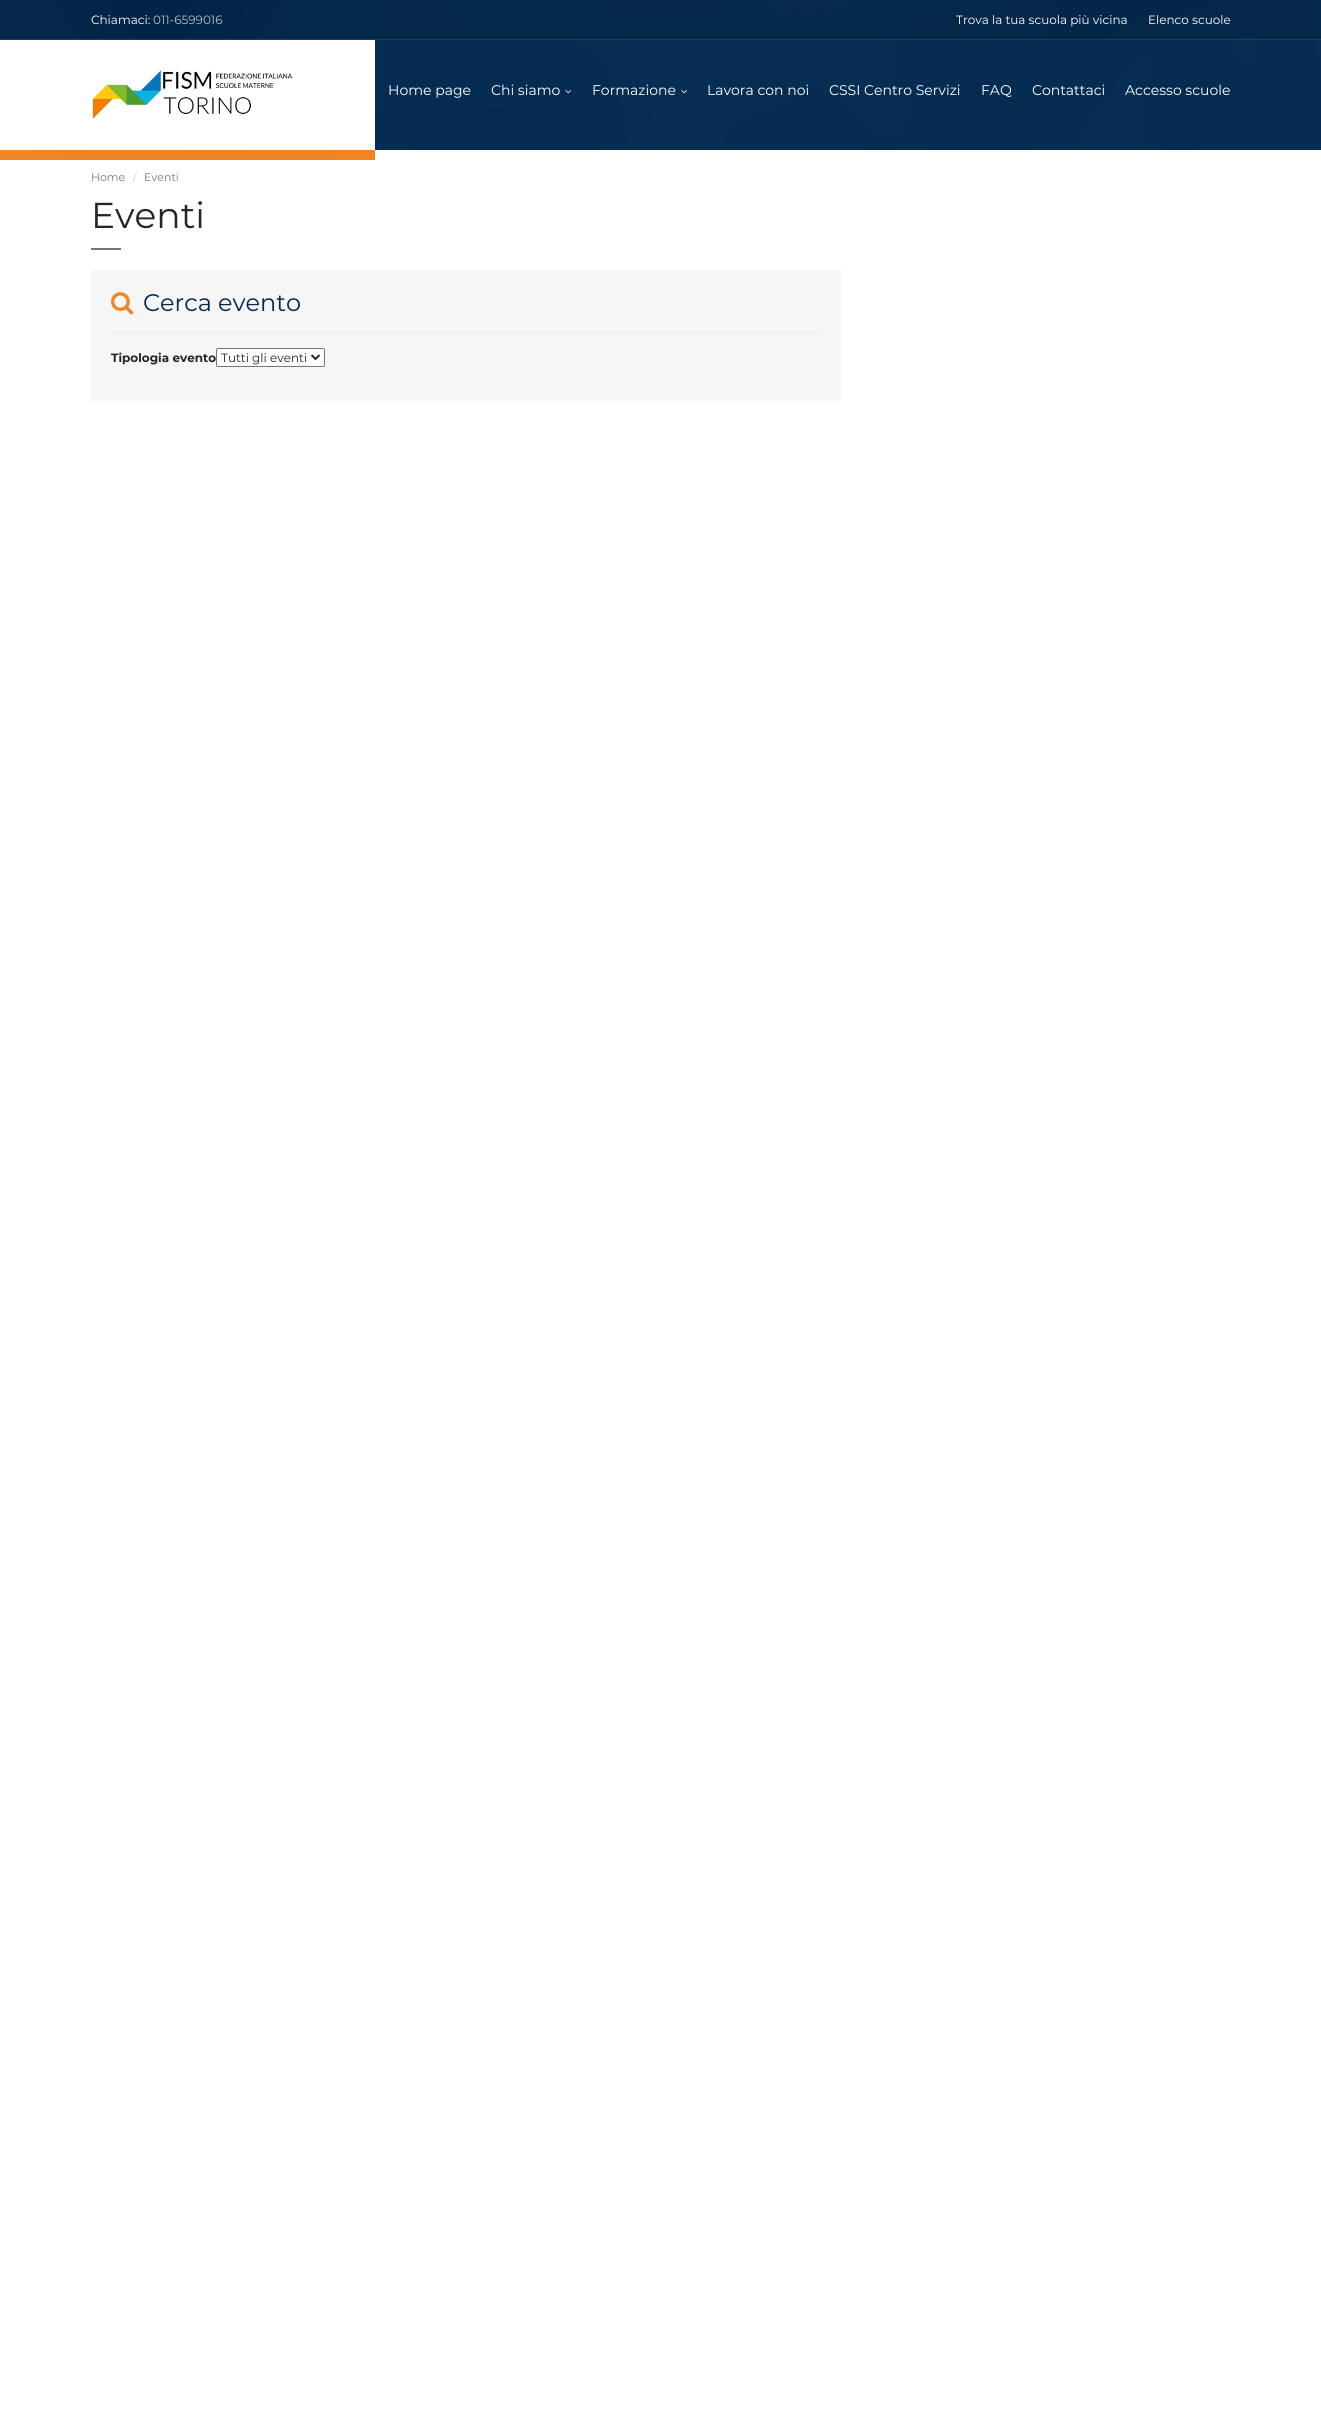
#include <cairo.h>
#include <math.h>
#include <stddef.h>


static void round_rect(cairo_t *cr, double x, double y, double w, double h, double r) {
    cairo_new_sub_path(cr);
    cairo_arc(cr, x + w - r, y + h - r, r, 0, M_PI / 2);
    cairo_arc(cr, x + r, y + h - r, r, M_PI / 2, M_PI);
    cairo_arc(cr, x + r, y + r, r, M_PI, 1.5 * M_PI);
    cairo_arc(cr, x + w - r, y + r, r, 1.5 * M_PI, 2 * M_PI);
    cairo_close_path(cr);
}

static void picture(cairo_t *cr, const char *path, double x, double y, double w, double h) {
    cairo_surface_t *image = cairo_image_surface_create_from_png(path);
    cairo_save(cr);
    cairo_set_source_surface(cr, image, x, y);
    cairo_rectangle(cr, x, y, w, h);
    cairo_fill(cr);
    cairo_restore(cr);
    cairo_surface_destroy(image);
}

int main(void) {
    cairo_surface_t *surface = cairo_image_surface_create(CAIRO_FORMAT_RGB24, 1321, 2420);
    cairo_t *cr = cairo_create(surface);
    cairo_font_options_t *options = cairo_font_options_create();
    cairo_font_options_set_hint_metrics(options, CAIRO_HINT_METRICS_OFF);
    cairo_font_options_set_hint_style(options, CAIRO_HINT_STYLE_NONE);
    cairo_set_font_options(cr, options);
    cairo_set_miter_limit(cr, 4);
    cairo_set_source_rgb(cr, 1, 1, 1);
    cairo_paint(cr);
    cairo_set_source_rgb(cr, 0.004, 0.161, 0.318);
    cairo_rectangle(cr, 0, 0, 1321, 150);
    cairo_fill(cr);
    picture(cr, "img1.png", 0, 0, 1321, 150);
    cairo_set_source_rgba(cr, 0, 0, 0, 0.1);
    cairo_rectangle(cr, 0, 0, 1321, 40);
    cairo_fill(cr);
    cairo_set_source_rgba(cr, 1, 1, 1, 0.1);
    cairo_rectangle(cr, 0, 39, 1321, 1);
    cairo_fill(cr);
    cairo_select_font_face(cr, "Montserrat", CAIRO_FONT_SLANT_NORMAL, CAIRO_FONT_WEIGHT_NORMAL);
    cairo_set_font_size(cr, 12);
    cairo_set_source_rgb(cr, 1, 1, 1);
    cairo_move_to(cr, 91, 24);
    cairo_show_text(cr, "Chiamaci:");
    cairo_set_source_rgb(cr, 0.702, 0.745, 0.784);
    cairo_move_to(cr, 153, 24);
    cairo_show_text(cr, "011-6599016");
    cairo_set_source_rgb(cr, 1, 1, 1);
    cairo_move_to(cr, 956, 24);
    cairo_show_text(cr, "Trova la tua scuola più vicina");
    cairo_move_to(cr, 1148, 24);
    cairo_show_text(cr, "Elenco scuole");
    cairo_rectangle(cr, 0, 40, 375, 110);
    cairo_fill(cr);
    picture(cr, "img2.png", 92, 70, 200, 49);
    cairo_set_source_rgb(cr, 0.953, 0.518, 0.141);
    cairo_rectangle(cr, 0, 150, 375, 10);
    cairo_fill(cr);
    picture(cr, "img3.png", 0, 150, 335, 10);
    cairo_set_font_size(cr, 14);
    cairo_set_source_rgb(cr, 1, 1, 1);
    cairo_move_to(cr, 388, 95);
    cairo_show_text(cr, "Home page");
    cairo_move_to(cr, 491, 95);
    cairo_show_text(cr, "Chi siamo");
    picture(cr, "img4.png", 565, 90, 6, 4);
    cairo_move_to(cr, 592, 95);
    cairo_show_text(cr, "Formazione");
    picture(cr, "img5.png", 681, 90, 6, 4);
    cairo_move_to(cr, 707, 95);
    cairo_show_text(cr, "Lavora con noi");
    cairo_move_to(cr, 829, 95);
    cairo_show_text(cr, "CSSI Centro Servizi");
    cairo_move_to(cr, 981, 95);
    cairo_show_text(cr, "FAQ");
    cairo_move_to(cr, 1032, 95);
    cairo_show_text(cr, "Contattaci");
    cairo_move_to(cr, 1125, 95);
    cairo_show_text(cr, "Accesso scuole");
    cairo_set_font_size(cr, 11);
    cairo_set_source_rgb(cr, 0.463, 0.463, 0.463);
    cairo_move_to(cr, 91, 181);
    cairo_show_text(cr, "Home");
    cairo_set_source_rgb(cr, 0.8, 0.8, 0.8);
    cairo_move_to(cr, 133, 181);
    cairo_show_text(cr, "/");
    cairo_set_source_rgb(cr, 0.463, 0.463, 0.463);
    cairo_move_to(cr, 144, 181);
    cairo_show_text(cr, "Eventi");
    cairo_set_font_size(cr, 36);
    cairo_set_source_rgb(cr, 0.145, 0.145, 0.145);
    cairo_move_to(cr, 91, 228);
    cairo_show_text(cr, "Eventi");
    cairo_set_source_rgb(cr, 0.463, 0.463, 0.463);
    cairo_rectangle(cr, 91, 248, 30, 2);
    cairo_fill(cr);
    cairo_set_source_rgb(cr, 0.961, 0.961, 0.961);
    cairo_rectangle(cr, 91, 270, 750, 131);
    cairo_fill(cr);
    cairo_set_source_rgb(cr, 0.914, 0.914, 0.914);
    cairo_rectangle(cr, 111, 332, 710, 1);
    cairo_fill(cr);
    picture(cr, "img6.png", 111, 292, 23, 23);
    cairo_set_font_size(cr, 24);
    cairo_set_source_rgb(cr, 0.004, 0.161, 0.318);
    cairo_move_to(cr, 143, 311);
    cairo_show_text(cr, "Cerca evento");
    cairo_select_font_face(cr, "Montserrat", CAIRO_FONT_SLANT_NORMAL, CAIRO_FONT_WEIGHT_BOLD);
    cairo_set_font_size(cr, 12);
    cairo_set_source_rgb(cr, 0.145, 0.145, 0.145);
    cairo_move_to(cr, 111, 362);
    cairo_show_text(cr, "Tipologia evento");
    cairo_set_source_rgb(cr, 1, 1, 1);
    round_rect(cr, 216.5, 348.5, 108, 18, 1.5);
    cairo_fill_preserve(cr);
    cairo_set_source_rgb(cr, 0.463, 0.463, 0.463);
    cairo_set_line_width(cr, 1);
    cairo_stroke(cr);
    cairo_new_path(cr);
    cairo_move_to(cr, 311.5, 355);
    cairo_line_to(cr, 315.5, 359);
    cairo_line_to(cr, 319.5, 355);
    cairo_set_source_rgb(cr, 0.145, 0.145, 0.145);
    cairo_set_line_width(cr, 2);
    cairo_stroke(cr);
    cairo_select_font_face(cr, "Montserrat", CAIRO_FONT_SLANT_NORMAL, CAIRO_FONT_WEIGHT_NORMAL);
    cairo_move_to(cr, 221, 362);
    cairo_show_text(cr, "Tutti gli eventi");
    cairo_surface_write_to_png(surface, "page.png");
    cairo_font_options_destroy(options);
    cairo_destroy(cr);
    cairo_surface_destroy(surface);
    return 0;
}
